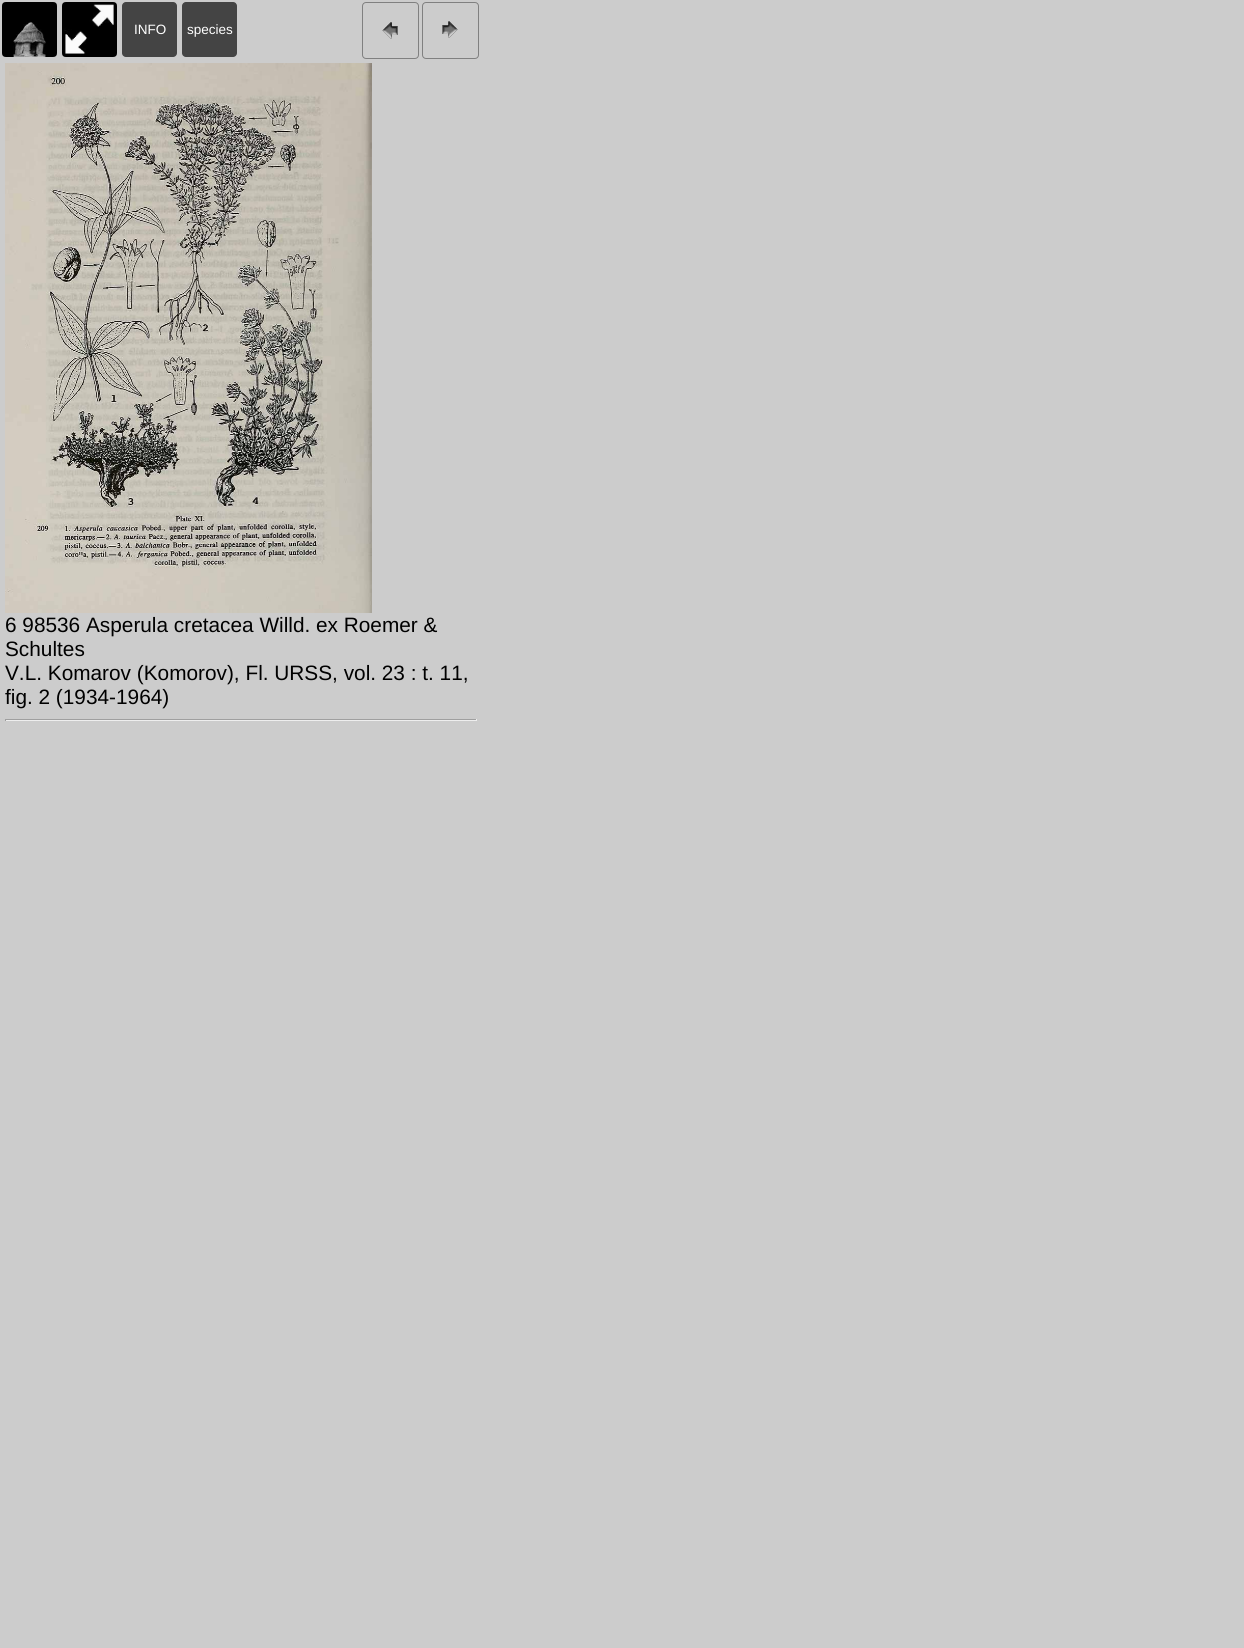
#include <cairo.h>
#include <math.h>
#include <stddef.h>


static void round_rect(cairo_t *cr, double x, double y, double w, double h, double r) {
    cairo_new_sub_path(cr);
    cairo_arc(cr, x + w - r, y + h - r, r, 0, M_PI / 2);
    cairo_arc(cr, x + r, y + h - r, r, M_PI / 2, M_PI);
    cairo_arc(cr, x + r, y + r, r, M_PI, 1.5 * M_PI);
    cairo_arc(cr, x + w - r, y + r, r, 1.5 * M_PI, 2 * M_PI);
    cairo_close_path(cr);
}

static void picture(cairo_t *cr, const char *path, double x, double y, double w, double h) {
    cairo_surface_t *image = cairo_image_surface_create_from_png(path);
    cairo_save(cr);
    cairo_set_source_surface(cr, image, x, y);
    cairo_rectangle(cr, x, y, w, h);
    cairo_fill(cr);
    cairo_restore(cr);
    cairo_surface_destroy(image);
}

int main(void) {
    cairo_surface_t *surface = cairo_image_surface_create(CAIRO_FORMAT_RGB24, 1244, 1648);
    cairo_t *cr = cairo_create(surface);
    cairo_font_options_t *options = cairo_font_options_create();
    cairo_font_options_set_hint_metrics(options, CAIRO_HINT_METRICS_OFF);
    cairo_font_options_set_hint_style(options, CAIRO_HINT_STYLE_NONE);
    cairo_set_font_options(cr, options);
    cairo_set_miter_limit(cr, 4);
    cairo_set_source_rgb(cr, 0.8, 0.8, 0.8);
    cairo_paint(cr);
    picture(cr, "img1.png", 2, 2, 55, 55);
    picture(cr, "img2.png", 62, 2, 55, 55);
    cairo_set_source_rgb(cr, 0.267, 0.267, 0.267);
    round_rect(cr, 122, 2, 55, 55, 4);
    cairo_fill(cr);
    cairo_select_font_face(cr, "Liberation Sans", CAIRO_FONT_SLANT_NORMAL, CAIRO_FONT_WEIGHT_NORMAL);
    cairo_set_font_size(cr, 13.5);
    cairo_set_source_rgb(cr, 1, 1, 1);
    cairo_move_to(cr, 134, 34);
    cairo_show_text(cr, "INFO");
    cairo_set_source_rgb(cr, 0.267, 0.267, 0.267);
    round_rect(cr, 182, 2, 55, 55, 4);
    cairo_fill(cr);
    cairo_set_source_rgb(cr, 1, 1, 1);
    cairo_move_to(cr, 187, 34);
    cairo_show_text(cr, "species");
    round_rect(cr, 362.5, 2.5, 56, 56, 3.5);
    cairo_set_source_rgb(cr, 0.502, 0.502, 0.502);
    cairo_set_line_width(cr, 1);
    cairo_stroke(cr);
    picture(cr, "img3.png", 382, 22, 16, 17);
    round_rect(cr, 422.5, 2.5, 56, 56, 3.5);
    cairo_stroke(cr);
    picture(cr, "img4.png", 442, 21, 16, 17);
    picture(cr, "img5.png", 5, 63, 367, 550);
    cairo_set_font_size(cr, 20.8);
    cairo_set_source_rgb(cr, 0, 0, 0);
    cairo_move_to(cr, 5, 632);
    cairo_show_text(cr, "6 98536 Asperula cretacea Willd. ex Roemer &");
    cairo_move_to(cr, 5, 656);
    cairo_show_text(cr, "Schultes");
    cairo_move_to(cr, 5, 680);
    cairo_show_text(cr, "V.L. Komarov (Komorov), Fl. URSS, vol. 23 : t. 11,");
    cairo_move_to(cr, 5, 704);
    cairo_show_text(cr, "fig. 2 (1934-1964)");
    cairo_set_source_rgb(cr, 0.624, 0.624, 0.624);
    cairo_rectangle(cr, 5, 719, 472, 1);
    cairo_fill(cr);
    cairo_set_source_rgb(cr, 0.933, 0.933, 0.933);
    cairo_rectangle(cr, 476, 719, 1, 2);
    cairo_fill(cr);
    cairo_rectangle(cr, 5, 720, 472, 1);
    cairo_fill(cr);
    cairo_set_source_rgb(cr, 0.624, 0.624, 0.624);
    cairo_rectangle(cr, 5, 719, 1, 2);
    cairo_fill(cr);
    cairo_surface_write_to_png(surface, "page.png");
    cairo_font_options_destroy(options);
    cairo_destroy(cr);
    cairo_surface_destroy(surface);
    return 0;
}
